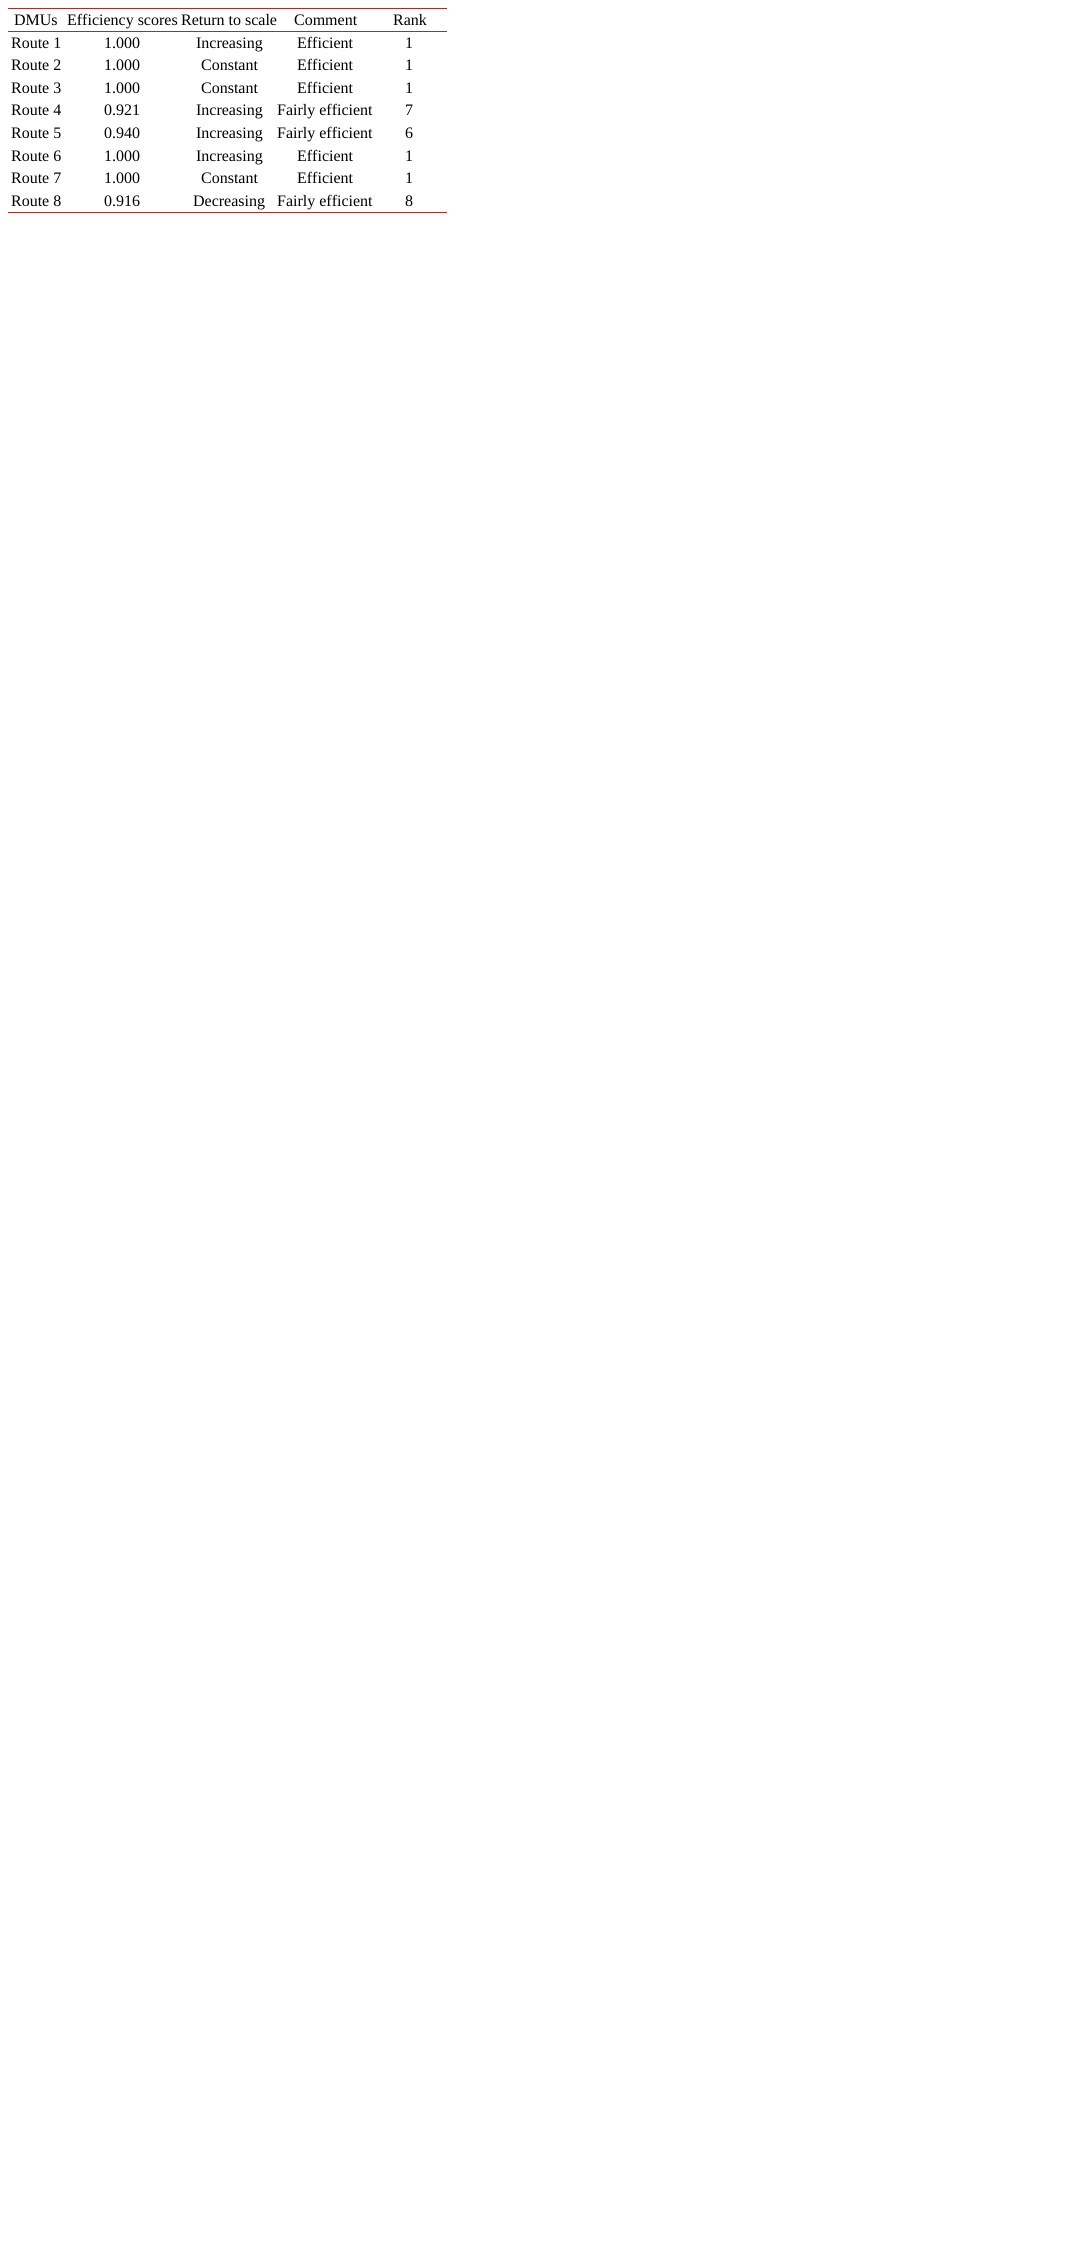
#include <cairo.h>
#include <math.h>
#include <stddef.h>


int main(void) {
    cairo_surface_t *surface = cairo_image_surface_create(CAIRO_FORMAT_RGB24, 1092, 2262);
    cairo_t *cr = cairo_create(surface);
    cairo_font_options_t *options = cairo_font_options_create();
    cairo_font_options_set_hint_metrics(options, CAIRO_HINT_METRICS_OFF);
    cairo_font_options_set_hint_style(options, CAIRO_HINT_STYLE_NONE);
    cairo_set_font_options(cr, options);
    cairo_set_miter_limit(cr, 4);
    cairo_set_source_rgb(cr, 1, 1, 1);
    cairo_paint(cr);
    cairo_select_font_face(cr, "Liberation Serif", CAIRO_FONT_SLANT_NORMAL, CAIRO_FONT_WEIGHT_NORMAL);
    cairo_set_font_size(cr, 16);
    cairo_set_source_rgb(cr, 0, 0, 0);
    cairo_move_to(cr, 14, 25);
    cairo_show_text(cr, "DMUs");
    cairo_move_to(cr, 67, 25);
    cairo_show_text(cr, "Efficiency scores");
    cairo_move_to(cr, 181, 25);
    cairo_show_text(cr, "Return to scale");
    cairo_move_to(cr, 294, 25);
    cairo_show_text(cr, "Comment");
    cairo_set_source_rgb(cr, 0.58, 0.212, 0.204);
    cairo_rectangle(cr, 8, 8, 439, 1);
    cairo_fill(cr);
    cairo_rectangle(cr, 8, 31, 439, 1);
    cairo_fill(cr);
    cairo_set_source_rgb(cr, 0, 0, 0);
    cairo_move_to(cr, 393, 25);
    cairo_show_text(cr, "Rank");
    cairo_move_to(cr, 11, 48);
    cairo_show_text(cr, "Route 1");
    cairo_move_to(cr, 104, 48);
    cairo_show_text(cr, "1.000");
    cairo_move_to(cr, 196, 48);
    cairo_show_text(cr, "Increasing");
    cairo_move_to(cr, 297, 48);
    cairo_show_text(cr, "Efficient");
    cairo_move_to(cr, 405, 48);
    cairo_show_text(cr, "1");
    cairo_move_to(cr, 11, 70);
    cairo_show_text(cr, "Route 2");
    cairo_move_to(cr, 104, 70);
    cairo_show_text(cr, "1.000");
    cairo_move_to(cr, 201, 70);
    cairo_show_text(cr, "Constant");
    cairo_move_to(cr, 297, 70);
    cairo_show_text(cr, "Efficient");
    cairo_move_to(cr, 405, 70);
    cairo_show_text(cr, "1");
    cairo_move_to(cr, 11, 93);
    cairo_show_text(cr, "Route 3");
    cairo_move_to(cr, 104, 93);
    cairo_show_text(cr, "1.000");
    cairo_move_to(cr, 201, 93);
    cairo_show_text(cr, "Constant");
    cairo_move_to(cr, 297, 93);
    cairo_show_text(cr, "Efficient");
    cairo_move_to(cr, 405, 93);
    cairo_show_text(cr, "1");
    cairo_move_to(cr, 11, 115);
    cairo_show_text(cr, "Route 4");
    cairo_move_to(cr, 104, 115);
    cairo_show_text(cr, "0.921");
    cairo_move_to(cr, 196, 115);
    cairo_show_text(cr, "Increasing");
    cairo_move_to(cr, 277, 115);
    cairo_show_text(cr, "Fairly efficient");
    cairo_move_to(cr, 405, 115);
    cairo_show_text(cr, "7");
    cairo_move_to(cr, 11, 138);
    cairo_show_text(cr, "Route 5");
    cairo_move_to(cr, 104, 138);
    cairo_show_text(cr, "0.940");
    cairo_move_to(cr, 196, 138);
    cairo_show_text(cr, "Increasing");
    cairo_move_to(cr, 277, 138);
    cairo_show_text(cr, "Fairly efficient");
    cairo_move_to(cr, 405, 138);
    cairo_show_text(cr, "6");
    cairo_move_to(cr, 11, 161);
    cairo_show_text(cr, "Route 6");
    cairo_move_to(cr, 104, 161);
    cairo_show_text(cr, "1.000");
    cairo_move_to(cr, 196, 161);
    cairo_show_text(cr, "Increasing");
    cairo_move_to(cr, 297, 161);
    cairo_show_text(cr, "Efficient");
    cairo_move_to(cr, 405, 161);
    cairo_show_text(cr, "1");
    cairo_move_to(cr, 11, 183);
    cairo_show_text(cr, "Route 7");
    cairo_move_to(cr, 104, 183);
    cairo_show_text(cr, "1.000");
    cairo_move_to(cr, 201, 183);
    cairo_show_text(cr, "Constant");
    cairo_move_to(cr, 297, 183);
    cairo_show_text(cr, "Efficient");
    cairo_move_to(cr, 405, 183);
    cairo_show_text(cr, "1");
    cairo_move_to(cr, 11, 206);
    cairo_show_text(cr, "Route 8");
    cairo_move_to(cr, 104, 206);
    cairo_show_text(cr, "0.916");
    cairo_move_to(cr, 193, 206);
    cairo_show_text(cr, "Decreasing");
    cairo_move_to(cr, 277, 206);
    cairo_show_text(cr, "Fairly efficient");
    cairo_set_source_rgb(cr, 0.58, 0.212, 0.204);
    cairo_rectangle(cr, 8, 212, 439, 1);
    cairo_fill(cr);
    cairo_set_source_rgb(cr, 0, 0, 0);
    cairo_move_to(cr, 405, 206);
    cairo_show_text(cr, "8");
    cairo_surface_write_to_png(surface, "page.png");
    cairo_font_options_destroy(options);
    cairo_destroy(cr);
    cairo_surface_destroy(surface);
    return 0;
}
